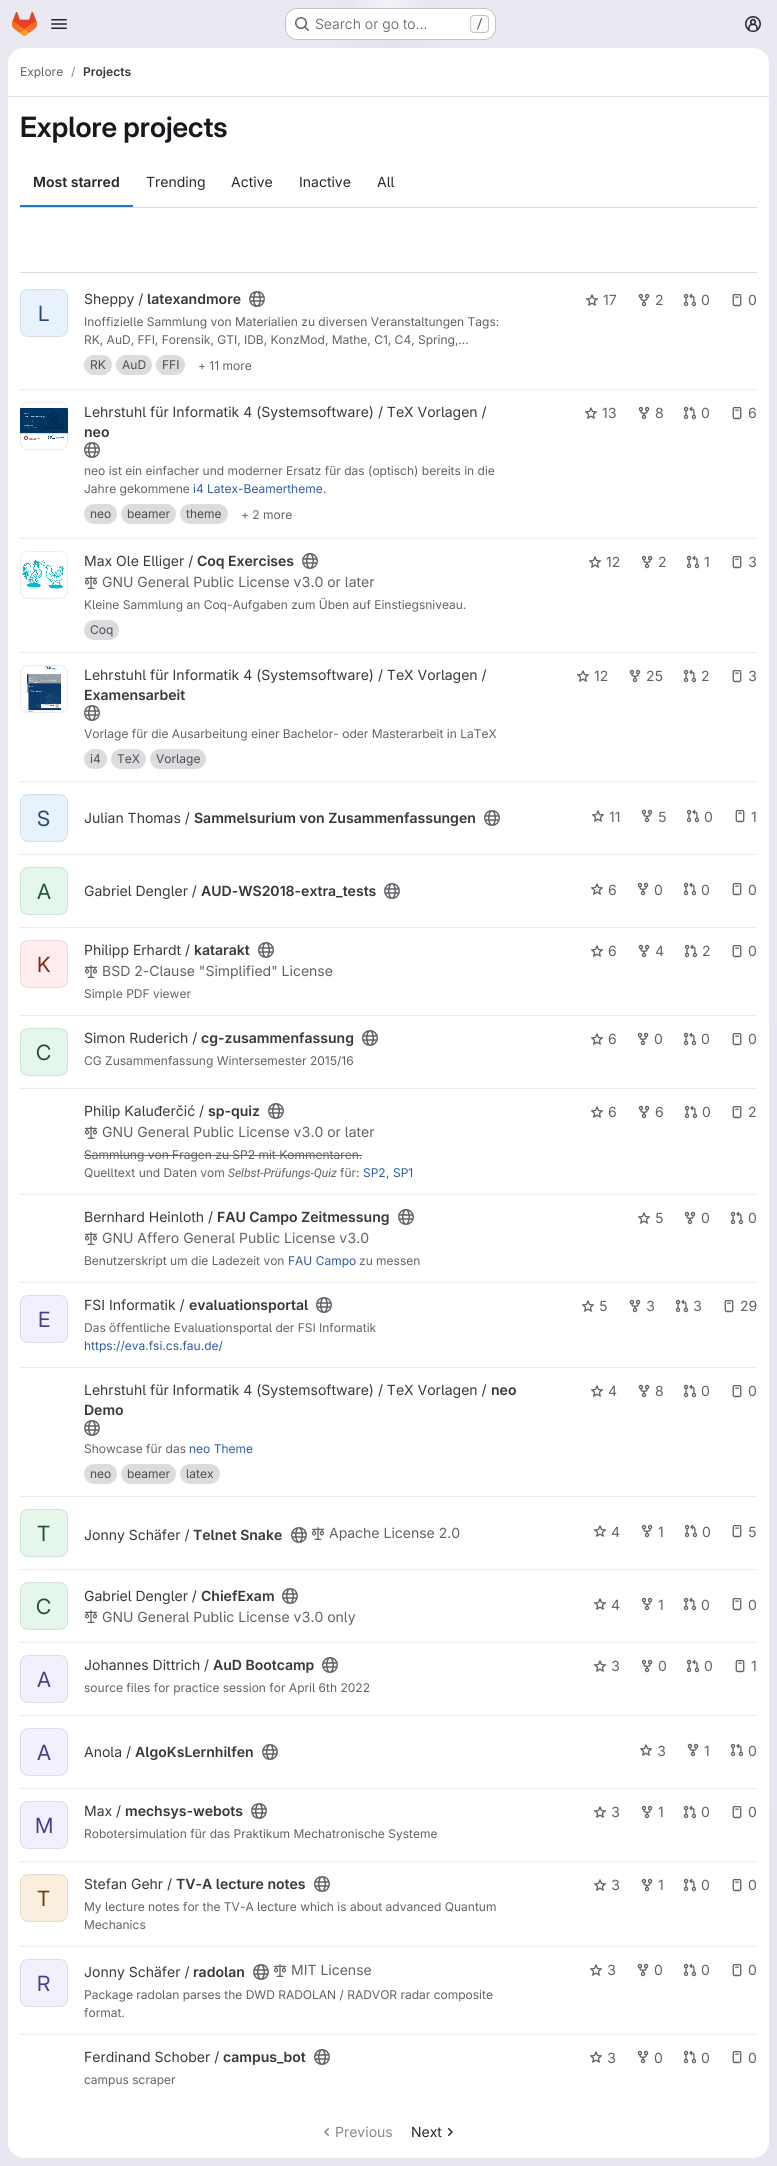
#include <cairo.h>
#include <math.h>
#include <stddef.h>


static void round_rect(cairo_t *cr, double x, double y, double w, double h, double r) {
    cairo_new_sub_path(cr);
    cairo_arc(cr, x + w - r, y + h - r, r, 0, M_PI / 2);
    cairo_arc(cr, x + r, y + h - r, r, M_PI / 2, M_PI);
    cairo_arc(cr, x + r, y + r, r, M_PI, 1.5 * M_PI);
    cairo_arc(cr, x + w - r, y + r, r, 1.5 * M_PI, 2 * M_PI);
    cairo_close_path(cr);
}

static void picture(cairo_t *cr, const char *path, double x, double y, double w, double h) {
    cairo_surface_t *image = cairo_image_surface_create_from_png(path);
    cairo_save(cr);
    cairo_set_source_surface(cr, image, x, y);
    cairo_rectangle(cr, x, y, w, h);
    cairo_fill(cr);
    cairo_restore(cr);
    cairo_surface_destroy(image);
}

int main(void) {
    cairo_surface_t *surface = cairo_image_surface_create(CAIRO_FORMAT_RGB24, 777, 2166);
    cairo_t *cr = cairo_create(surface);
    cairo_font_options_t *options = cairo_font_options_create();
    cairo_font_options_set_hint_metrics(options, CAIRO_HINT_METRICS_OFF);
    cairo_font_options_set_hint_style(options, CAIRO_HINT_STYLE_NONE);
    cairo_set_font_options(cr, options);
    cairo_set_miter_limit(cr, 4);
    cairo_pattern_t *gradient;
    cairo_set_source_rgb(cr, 1, 1, 1);
    cairo_paint(cr);
    gradient = cairo_pattern_create_linear(585, 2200, 192, -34);
    cairo_pattern_add_color_stop_rgba(gradient, 0, 0.91, 0.902, 0.941, 1);
    cairo_pattern_add_color_stop_rgba(gradient, 0.7, 0.918, 0.914, 0.949, 1);
    cairo_set_source(cr, gradient);
    cairo_pattern_destroy(gradient);
    cairo_rectangle(cr, 0, 0, 777, 2166);
    cairo_fill(cr);
    gradient = cairo_pattern_create_radial(0, 0, 0, 0, 0, 1);
    cairo_pattern_set_matrix(gradient, &(cairo_matrix_t){1.0 / 389, 0, 0, 1.0 / 2166, -1.0 * 389 / 389, -1.0 * 0 / 2166});
    cairo_pattern_add_color_stop_rgba(gradient, 0, 0.894, 0.886, 0.929, 1);
    cairo_pattern_add_color_stop_rgba(gradient, 0.18, 0.894, 0.886, 0.929, 0);
    cairo_set_source(cr, gradient);
    cairo_pattern_destroy(gradient);
    cairo_rectangle(cr, 338, 0, 102, 48);
    cairo_fill(cr);
    gradient = cairo_pattern_create_radial(0, 0, 0, 0, 0, 1);
    cairo_pattern_set_matrix(gradient, &(cairo_matrix_t){1.0 / 389, 0, 0, 1.0 / 2166, -1.0 * 389 / 389, -1.0 * 0 / 2166});
    cairo_pattern_add_color_stop_rgba(gradient, 0, 0.894, 0.886, 0.925, 1);
    cairo_pattern_add_color_stop_rgba(gradient, 0.13, 0.894, 0.886, 0.925, 0);
    cairo_set_source(cr, gradient);
    cairo_pattern_destroy(gradient);
    cairo_rectangle(cr, 365, 7, 48, 25);
    cairo_fill(cr);
    gradient = cairo_pattern_create_radial(389, 0, 0, 389, 0, 2201);
    cairo_pattern_add_color_stop_rgba(gradient, 0, 1, 1, 1, 0.6);
    cairo_pattern_add_color_stop_rgba(gradient, 0.02, 1, 1, 1, 0);
    cairo_set_source(cr, gradient);
    cairo_pattern_destroy(gradient);
    cairo_rectangle(cr, 353, 0, 72, 37);
    cairo_fill(cr);
    picture(cr, "img1.png", 12, 12, 25, 24);
    picture(cr, "img2.png", 51, 19, 16, 10);
    cairo_set_source_rgb(cr, 1, 1, 1);
    round_rect(cr, 285, 8, 211, 32, 12);
    cairo_fill(cr);
    round_rect(cr, 285.5, 8.5, 210, 31, 11.5);
    cairo_set_source_rgba(cr, 0.02, 0.02, 0.024, 0.24);
    cairo_set_line_width(cr, 1);
    cairo_stroke(cr);
    picture(cr, "img3.png", 295, 17, 14, 14);
    cairo_select_font_face(cr, "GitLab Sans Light", CAIRO_FONT_SLANT_NORMAL, CAIRO_FONT_WEIGHT_NORMAL);
    cairo_set_font_size(cr, 14);
    cairo_set_source_rgb(cr, 0.384, 0.38, 0.408);
    cairo_move_to(cr, 315, 29);
    cairo_show_text(cr, "Search or go to…");
    cairo_set_source_rgb(cr, 0.984, 0.98, 0.992);
    round_rect(cr, 470.5, 15.5, 18, 17, 3.5);
    cairo_fill_preserve(cr);
    cairo_set_source_rgb(cr, 0.749, 0.749, 0.765);
    cairo_stroke(cr);
    cairo_select_font_face(cr, "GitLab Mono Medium", CAIRO_FONT_SLANT_NORMAL, CAIRO_FONT_WEIGHT_NORMAL);
    cairo_set_font_size(cr, 12);
    cairo_set_source_rgb(cr, 0.384, 0.38, 0.408);
    cairo_move_to(cr, 476, 28);
    cairo_show_text(cr, "/");
    picture(cr, "img4.png", 745, 16, 16, 16);
    cairo_set_source_rgb(cr, 1, 1, 1);
    round_rect(cr, 8, 48, 761, 2110, 16);
    cairo_fill(cr);
    cairo_new_path(cr);
    cairo_move_to(cr, 24, 48);
    cairo_line_to(cr, 753, 48);
    cairo_curve_to(cr, 762, 48, 769, 55, 769, 64);
    cairo_line_to(cr, 769, 97);
    cairo_line_to(cr, 8, 97);
    cairo_line_to(cr, 8, 64);
    cairo_curve_to(cr, 8, 55, 15, 48, 24, 48);
    cairo_close_path(cr);
    cairo_fill(cr);
    cairo_set_source_rgb(cr, 0.882, 0.875, 0.925);
    cairo_rectangle(cr, 8, 96, 761, 1);
    cairo_fill(cr);
    cairo_select_font_face(cr, "GitLab Sans", CAIRO_FONT_SLANT_NORMAL, CAIRO_FONT_WEIGHT_NORMAL);
    cairo_set_source_rgb(cr, 0.384, 0.38, 0.408);
    cairo_move_to(cr, 20, 76);
    cairo_show_text(cr, "Explore");
    cairo_set_source_rgb(cr, 0.537, 0.533, 0.553);
    cairo_move_to(cr, 71, 76);
    cairo_show_text(cr, "/");
    cairo_select_font_face(cr, "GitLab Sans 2 SemiBold", CAIRO_FONT_SLANT_NORMAL, CAIRO_FONT_WEIGHT_NORMAL);
    cairo_set_source_rgb(cr, 0.227, 0.22, 0.247);
    cairo_move_to(cr, 83, 76);
    cairo_show_text(cr, "Projects");
    cairo_select_font_face(cr, "GitLab Sans SemiBold", CAIRO_FONT_SLANT_NORMAL, CAIRO_FONT_WEIGHT_NORMAL);
    cairo_set_font_size(cr, 28);
    cairo_set_source_rgb(cr, 0.094, 0.09, 0.114);
    cairo_move_to(cr, 20, 137);
    cairo_show_text(cr, "Explore projects");
    cairo_select_font_face(cr, "GitLab Sans 2 SemiBold", CAIRO_FONT_SLANT_NORMAL, CAIRO_FONT_WEIGHT_NORMAL);
    cairo_set_font_size(cr, 14);
    cairo_set_source_rgb(cr, 0.157, 0.153, 0.176);
    cairo_move_to(cr, 33, 187);
    cairo_show_text(cr, "Most starred");
    cairo_set_source_rgb(cr, 0.122, 0.459, 0.796);
    cairo_rectangle(cr, 20, 205, 113, 2);
    cairo_fill(cr);
    cairo_select_font_face(cr, "GitLab Sans", CAIRO_FONT_SLANT_NORMAL, CAIRO_FONT_WEIGHT_NORMAL);
    cairo_set_source_rgb(cr, 0.157, 0.153, 0.176);
    cairo_move_to(cr, 146, 187);
    cairo_show_text(cr, "Trending");
    cairo_move_to(cr, 231, 187);
    cairo_show_text(cr, "Active");
    cairo_move_to(cr, 299, 187);
    cairo_show_text(cr, "Inactive");
    cairo_move_to(cr, 377, 187);
    cairo_show_text(cr, "All");
    cairo_set_source_rgb(cr, 0.863, 0.863, 0.871);
    cairo_rectangle(cr, 20, 207, 737, 1);
    cairo_fill(cr);
    cairo_rectangle(cr, 20, 272, 737, 1);
    cairo_fill(cr);
    cairo_set_source_rgb(cr, 0.925, 0.925, 0.937);
    cairo_rectangle(cr, 20, 389, 737, 1);
    cairo_fill(cr);
    cairo_set_source_rgb(cr, 0.227, 0.22, 0.247);
    cairo_move_to(cr, 84, 304);
    cairo_show_text(cr, "Sheppy /");
    cairo_select_font_face(cr, "GitLab Sans 2 SemiBold", CAIRO_FONT_SLANT_NORMAL, CAIRO_FONT_WEIGHT_NORMAL);
    cairo_move_to(cr, 147, 304);
    cairo_show_text(cr, "latexandmore");
    picture(cr, "img5.png", 249, 291, 16, 16);
    cairo_select_font_face(cr, "GitLab Sans", CAIRO_FONT_SLANT_NORMAL, CAIRO_FONT_WEIGHT_NORMAL);
    cairo_set_font_size(cr, 12);
    cairo_set_source_rgb(cr, 0.384, 0.38, 0.408);
    cairo_move_to(cr, 84, 326);
    cairo_show_text(cr, "Inoffizielle Sammlung von Materialien zu diversen Veranstaltungen Tags:");
    cairo_move_to(cr, 84, 344);
    cairo_show_text(cr, "RK, AuD, FFI, Forensik, GTI, IDB, KonzMod, Mathe, C1, C4, Spring,…");
    cairo_set_source_rgb(cr, 0.863, 0.863, 0.871);
    round_rect(cr, 84, 355, 28, 20, 10);
    cairo_fill(cr);
    cairo_set_source_rgb(cr, 0.298, 0.294, 0.318);
    cairo_move_to(cr, 90, 369);
    cairo_show_text(cr, "RK");
    cairo_set_source_rgb(cr, 0.863, 0.863, 0.871);
    round_rect(cr, 116, 355, 36, 20, 10);
    cairo_fill(cr);
    cairo_set_source_rgb(cr, 0.298, 0.294, 0.318);
    cairo_move_to(cr, 122, 369);
    cairo_show_text(cr, "AuD");
    cairo_set_source_rgb(cr, 0.863, 0.863, 0.871);
    round_rect(cr, 156, 355, 29, 20, 10);
    cairo_fill(cr);
    cairo_set_source_rgb(cr, 0.298, 0.294, 0.318);
    cairo_move_to(cr, 162, 369);
    cairo_show_text(cr, "FFI");
    cairo_set_source_rgb(cr, 0.384, 0.38, 0.408);
    cairo_move_to(cr, 198, 370);
    cairo_show_text(cr, "+ 11 more");
    picture(cr, "img6.png", 585, 294, 14, 12);
    cairo_set_font_size(cr, 14);
    cairo_move_to(cr, 603, 305);
    cairo_show_text(cr, "17");
    picture(cr, "img7.png", 638, 293, 12, 14);
    cairo_move_to(cr, 655, 305);
    cairo_show_text(cr, "2");
    picture(cr, "img8.png", 683, 293, 14, 14);
    cairo_move_to(cr, 701, 305);
    cairo_show_text(cr, "0");
    picture(cr, "img9.png", 732, 294, 10, 13);
    cairo_move_to(cr, 748, 305);
    cairo_show_text(cr, "0");
    cairo_set_source_rgb(cr, 0.906, 0.949, 0.988);
    round_rect(cr, 20, 289, 48, 48, 8);
    cairo_fill(cr);
    round_rect(cr, 20.5, 289.5, 47, 47, 7.5);
    cairo_set_source_rgba(cr, 0.02, 0.02, 0.024, 0.08);
    cairo_stroke(cr);
    cairo_select_font_face(cr, "GitLab Sans 2", CAIRO_FONT_SLANT_NORMAL, CAIRO_FONT_WEIGHT_NORMAL);
    cairo_set_font_size(cr, 21);
    cairo_set_source_rgb(cr, 0.157, 0.278, 0.475);
    cairo_move_to(cr, 38, 321);
    cairo_show_text(cr, "L");
    cairo_set_source_rgb(cr, 0.925, 0.925, 0.937);
    cairo_rectangle(cr, 20, 538, 737, 1);
    cairo_fill(cr);
    picture(cr, "img10.png", 20, 408, 48, 33);
    round_rect(cr, 20.5, 402.5, 47, 47, 7.5);
    cairo_set_source_rgba(cr, 0.02, 0.02, 0.024, 0.08);
    cairo_stroke(cr);
    cairo_select_font_face(cr, "GitLab Sans", CAIRO_FONT_SLANT_NORMAL, CAIRO_FONT_WEIGHT_NORMAL);
    cairo_set_font_size(cr, 14);
    cairo_set_source_rgb(cr, 0.227, 0.22, 0.247);
    cairo_move_to(cr, 84, 417);
    cairo_show_text(cr, "Lehrstuhl für Informatik 4 (Systemsoftware) / TeX Vorlagen /");
    cairo_select_font_face(cr, "GitLab Sans 2 SemiBold", CAIRO_FONT_SLANT_NORMAL, CAIRO_FONT_WEIGHT_NORMAL);
    cairo_move_to(cr, 84, 437);
    cairo_show_text(cr, "neo");
    picture(cr, "img11.png", 84, 442, 16, 16);
    cairo_select_font_face(cr, "GitLab Sans", CAIRO_FONT_SLANT_NORMAL, CAIRO_FONT_WEIGHT_NORMAL);
    cairo_set_font_size(cr, 12);
    cairo_set_source_rgb(cr, 0.384, 0.38, 0.408);
    cairo_move_to(cr, 84, 475);
    cairo_show_text(cr, "neo ist ein einfacher und moderner Ersatz für das (optisch) bereits in die");
    cairo_move_to(cr, 84, 493);
    cairo_show_text(cr, "Jahre gekommene");
    cairo_set_source_rgb(cr, 0.184, 0.361, 0.627);
    cairo_move_to(cr, 193, 493);
    cairo_show_text(cr, "i4 Latex-Beamertheme");
    cairo_set_source_rgb(cr, 0.384, 0.38, 0.408);
    cairo_move_to(cr, 323, 493);
    cairo_show_text(cr, ".");
    cairo_set_source_rgb(cr, 0.863, 0.863, 0.871);
    round_rect(cr, 84, 504, 33, 20, 10);
    cairo_fill(cr);
    cairo_set_source_rgb(cr, 0.298, 0.294, 0.318);
    cairo_move_to(cr, 90, 518);
    cairo_show_text(cr, "neo");
    cairo_set_source_rgb(cr, 0.863, 0.863, 0.871);
    round_rect(cr, 121, 504, 55, 20, 10);
    cairo_fill(cr);
    cairo_set_source_rgb(cr, 0.298, 0.294, 0.318);
    cairo_move_to(cr, 127, 518);
    cairo_show_text(cr, "beamer");
    cairo_set_source_rgb(cr, 0.863, 0.863, 0.871);
    round_rect(cr, 180, 504, 48, 20, 10);
    cairo_fill(cr);
    cairo_set_source_rgb(cr, 0.298, 0.294, 0.318);
    cairo_move_to(cr, 186, 518);
    cairo_show_text(cr, "theme");
    cairo_set_source_rgb(cr, 0.384, 0.38, 0.408);
    cairo_move_to(cr, 241, 519);
    cairo_show_text(cr, "+ 2 more");
    picture(cr, "img6.png", 584, 407, 14, 12);
    cairo_set_font_size(cr, 14);
    cairo_move_to(cr, 602, 418);
    cairo_show_text(cr, "13");
    picture(cr, "img7.png", 638, 406, 12, 14);
    cairo_move_to(cr, 655, 418);
    cairo_show_text(cr, "8");
    picture(cr, "img8.png", 683, 406, 14, 14);
    cairo_move_to(cr, 701, 418);
    cairo_show_text(cr, "0");
    picture(cr, "img9.png", 732, 407, 10, 13);
    cairo_move_to(cr, 748, 418);
    cairo_show_text(cr, "6");
    cairo_set_source_rgb(cr, 0.925, 0.925, 0.937);
    cairo_rectangle(cr, 20, 652, 737, 1);
    cairo_fill(cr);
    picture(cr, "img12.png", 22, 560, 42, 29);
    round_rect(cr, 20.5, 551.5, 47, 47, 7.5);
    cairo_set_source_rgb(cr, 0.922, 0.922, 0.922);
    cairo_stroke(cr);
    cairo_set_source_rgb(cr, 0.227, 0.22, 0.247);
    cairo_move_to(cr, 84, 566);
    cairo_show_text(cr, "Max Ole Elliger /");
    cairo_select_font_face(cr, "GitLab Sans 2 SemiBold", CAIRO_FONT_SLANT_NORMAL, CAIRO_FONT_WEIGHT_NORMAL);
    cairo_move_to(cr, 197, 566);
    cairo_show_text(cr, "Coq Exercises");
    picture(cr, "img11.png", 302, 553, 16, 16);
    picture(cr, "img13.png", 84, 576, 14, 13);
    cairo_select_font_face(cr, "GitLab Sans", CAIRO_FONT_SLANT_NORMAL, CAIRO_FONT_WEIGHT_NORMAL);
    cairo_set_source_rgb(cr, 0.384, 0.38, 0.408);
    cairo_move_to(cr, 102, 587);
    cairo_show_text(cr, "GNU General Public License v3.0 or later");
    cairo_set_font_size(cr, 12);
    cairo_move_to(cr, 84, 609);
    cairo_show_text(cr, "Kleine Sammlung an Coq-Aufgaben zum Üben auf Einstiegsniveau.");
    cairo_set_source_rgb(cr, 0.863, 0.863, 0.871);
    round_rect(cr, 84, 620, 35, 20, 10);
    cairo_fill(cr);
    cairo_set_source_rgb(cr, 0.298, 0.294, 0.318);
    cairo_move_to(cr, 90, 634);
    cairo_show_text(cr, "Coq");
    picture(cr, "img6.png", 588, 556, 14, 12);
    cairo_set_font_size(cr, 14);
    cairo_set_source_rgb(cr, 0.384, 0.38, 0.408);
    cairo_move_to(cr, 606, 567);
    cairo_show_text(cr, "12");
    picture(cr, "img14.png", 641, 555, 12, 14);
    cairo_move_to(cr, 658, 567);
    cairo_show_text(cr, "2");
    picture(cr, "img15.png", 686, 555, 14, 14);
    cairo_move_to(cr, 704, 567);
    cairo_show_text(cr, "1");
    picture(cr, "img9.png", 732, 556, 10, 13);
    cairo_move_to(cr, 748, 567);
    cairo_show_text(cr, "3");
    cairo_set_source_rgb(cr, 0.925, 0.925, 0.937);
    cairo_rectangle(cr, 20, 781, 737, 1);
    cairo_fill(cr);
    picture(cr, "img16.png", 27, 666, 34, 46);
    round_rect(cr, 20.5, 665.5, 47, 47, 7.5);
    cairo_set_source_rgb(cr, 0.922, 0.922, 0.922);
    cairo_stroke(cr);
    cairo_set_source_rgb(cr, 0.227, 0.22, 0.247);
    cairo_move_to(cr, 84, 680);
    cairo_show_text(cr, "Lehrstuhl für Informatik 4 (Systemsoftware) / TeX Vorlagen /");
    cairo_select_font_face(cr, "GitLab Sans 2 SemiBold", CAIRO_FONT_SLANT_NORMAL, CAIRO_FONT_WEIGHT_NORMAL);
    cairo_move_to(cr, 84, 700);
    cairo_show_text(cr, "Examensarbeit");
    picture(cr, "img11.png", 84, 705, 16, 16);
    cairo_select_font_face(cr, "GitLab Sans", CAIRO_FONT_SLANT_NORMAL, CAIRO_FONT_WEIGHT_NORMAL);
    cairo_set_font_size(cr, 12);
    cairo_set_source_rgb(cr, 0.384, 0.38, 0.408);
    cairo_move_to(cr, 84, 738);
    cairo_show_text(cr, "Vorlage für die Ausarbeitung einer Bachelor- oder Masterarbeit in LaTeX");
    cairo_set_source_rgb(cr, 0.863, 0.863, 0.871);
    round_rect(cr, 84, 749, 23, 20, 10);
    cairo_fill(cr);
    cairo_set_source_rgb(cr, 0.298, 0.294, 0.318);
    cairo_move_to(cr, 90, 763);
    cairo_show_text(cr, "i4");
    cairo_set_source_rgb(cr, 0.863, 0.863, 0.871);
    round_rect(cr, 111, 749, 35, 20, 10);
    cairo_fill(cr);
    cairo_set_source_rgb(cr, 0.298, 0.294, 0.318);
    cairo_move_to(cr, 117, 763);
    cairo_show_text(cr, "TeX");
    cairo_set_source_rgb(cr, 0.863, 0.863, 0.871);
    round_rect(cr, 150, 749, 56, 20, 10);
    cairo_fill(cr);
    cairo_set_source_rgb(cr, 0.298, 0.294, 0.318);
    cairo_move_to(cr, 156, 763);
    cairo_show_text(cr, "Vorlage");
    picture(cr, "img6.png", 576, 670, 14, 12);
    cairo_set_font_size(cr, 14);
    cairo_set_source_rgb(cr, 0.384, 0.38, 0.408);
    cairo_move_to(cr, 594, 681);
    cairo_show_text(cr, "12");
    picture(cr, "img17.png", 629, 669, 12, 14);
    cairo_move_to(cr, 646, 681);
    cairo_show_text(cr, "25");
    picture(cr, "img8.png", 683, 669, 14, 14);
    cairo_move_to(cr, 701, 681);
    cairo_show_text(cr, "2");
    picture(cr, "img9.png", 732, 670, 10, 13);
    cairo_move_to(cr, 748, 681);
    cairo_show_text(cr, "3");
    cairo_set_source_rgb(cr, 0.925, 0.925, 0.937);
    cairo_rectangle(cr, 20, 854, 737, 1);
    cairo_fill(cr);
    cairo_set_source_rgb(cr, 0.906, 0.949, 0.988);
    round_rect(cr, 20, 794, 48, 48, 8);
    cairo_fill(cr);
    round_rect(cr, 20.5, 794.5, 47, 47, 7.5);
    cairo_set_source_rgba(cr, 0.02, 0.02, 0.024, 0.08);
    cairo_stroke(cr);
    cairo_select_font_face(cr, "GitLab Sans 2", CAIRO_FONT_SLANT_NORMAL, CAIRO_FONT_WEIGHT_NORMAL);
    cairo_set_font_size(cr, 21);
    cairo_set_source_rgb(cr, 0.157, 0.278, 0.475);
    cairo_move_to(cr, 37, 826);
    cairo_show_text(cr, "S");
    cairo_select_font_face(cr, "GitLab Sans", CAIRO_FONT_SLANT_NORMAL, CAIRO_FONT_WEIGHT_NORMAL);
    cairo_set_font_size(cr, 14);
    cairo_set_source_rgb(cr, 0.227, 0.22, 0.247);
    cairo_move_to(cr, 84, 823);
    cairo_show_text(cr, "Julian Thomas /");
    cairo_select_font_face(cr, "GitLab Sans 2 SemiBold", CAIRO_FONT_SLANT_NORMAL, CAIRO_FONT_WEIGHT_NORMAL);
    cairo_move_to(cr, 194, 823);
    cairo_show_text(cr, "Sammelsurium von Zusammenfassungen");
    picture(cr, "img11.png", 484, 810, 16, 16);
    picture(cr, "img6.png", 591, 810, 14, 12);
    cairo_select_font_face(cr, "GitLab Sans", CAIRO_FONT_SLANT_NORMAL, CAIRO_FONT_WEIGHT_NORMAL);
    cairo_set_source_rgb(cr, 0.384, 0.38, 0.408);
    cairo_move_to(cr, 609, 822);
    cairo_show_text(cr, "11");
    picture(cr, "img14.png", 641, 809, 12, 14);
    cairo_move_to(cr, 658, 822);
    cairo_show_text(cr, "5");
    picture(cr, "img15.png", 686, 809, 14, 14);
    cairo_move_to(cr, 704, 822);
    cairo_show_text(cr, "0");
    picture(cr, "img9.png", 735, 810, 10, 13);
    cairo_move_to(cr, 751, 822);
    cairo_show_text(cr, "1");
    cairo_set_source_rgb(cr, 0.925, 0.925, 0.937);
    cairo_rectangle(cr, 20, 927, 737, 1);
    cairo_fill(cr);
    cairo_set_source_rgb(cr, 0.898, 0.961, 0.918);
    round_rect(cr, 20, 867, 48, 48, 8);
    cairo_fill(cr);
    round_rect(cr, 20.5, 867.5, 47, 47, 7.5);
    cairo_set_source_rgba(cr, 0.02, 0.02, 0.024, 0.08);
    cairo_stroke(cr);
    cairo_select_font_face(cr, "GitLab Sans 2", CAIRO_FONT_SLANT_NORMAL, CAIRO_FONT_WEIGHT_NORMAL);
    cairo_set_font_size(cr, 21);
    cairo_set_source_rgb(cr, 0.133, 0.318, 0.192);
    cairo_move_to(cr, 37, 899);
    cairo_show_text(cr, "A");
    cairo_select_font_face(cr, "GitLab Sans", CAIRO_FONT_SLANT_NORMAL, CAIRO_FONT_WEIGHT_NORMAL);
    cairo_set_font_size(cr, 14);
    cairo_set_source_rgb(cr, 0.227, 0.22, 0.247);
    cairo_move_to(cr, 84, 896);
    cairo_show_text(cr, "Gabriel Dengler /");
    cairo_select_font_face(cr, "GitLab Sans 2 SemiBold", CAIRO_FONT_SLANT_NORMAL, CAIRO_FONT_WEIGHT_NORMAL);
    cairo_move_to(cr, 201, 896);
    cairo_show_text(cr, "AUD-WS2018-extra_tests");
    picture(cr, "img11.png", 384, 883, 16, 16);
    picture(cr, "img6.png", 590, 883, 14, 12);
    cairo_select_font_face(cr, "GitLab Sans", CAIRO_FONT_SLANT_NORMAL, CAIRO_FONT_WEIGHT_NORMAL);
    cairo_set_source_rgb(cr, 0.384, 0.38, 0.408);
    cairo_move_to(cr, 608, 895);
    cairo_show_text(cr, "6");
    picture(cr, "img7.png", 637, 882, 12, 14);
    cairo_move_to(cr, 654, 895);
    cairo_show_text(cr, "0");
    picture(cr, "img8.png", 683, 882, 14, 14);
    cairo_move_to(cr, 701, 895);
    cairo_show_text(cr, "0");
    picture(cr, "img9.png", 732, 883, 10, 13);
    cairo_move_to(cr, 748, 895);
    cairo_show_text(cr, "0");
    cairo_set_source_rgb(cr, 0.925, 0.925, 0.937);
    cairo_rectangle(cr, 20, 1015, 737, 1);
    cairo_fill(cr);
    cairo_set_source_rgb(cr, 0.227, 0.22, 0.247);
    cairo_move_to(cr, 84, 955);
    cairo_show_text(cr, "Philipp Erhardt /");
    cairo_select_font_face(cr, "GitLab Sans 2 SemiBold", CAIRO_FONT_SLANT_NORMAL, CAIRO_FONT_WEIGHT_NORMAL);
    cairo_move_to(cr, 194, 955);
    cairo_show_text(cr, "katarakt");
    picture(cr, "img11.png", 258, 942, 16, 16);
    picture(cr, "img13.png", 84, 965, 14, 13);
    cairo_select_font_face(cr, "GitLab Sans", CAIRO_FONT_SLANT_NORMAL, CAIRO_FONT_WEIGHT_NORMAL);
    cairo_set_source_rgb(cr, 0.384, 0.38, 0.408);
    cairo_move_to(cr, 102, 976);
    cairo_show_text(cr, "BSD 2-Clause \"Simplified\" License");
    cairo_set_font_size(cr, 12);
    cairo_move_to(cr, 84, 998);
    cairo_show_text(cr, "Simple PDF viewer");
    picture(cr, "img6.png", 590, 945, 14, 12);
    cairo_set_font_size(cr, 14);
    cairo_move_to(cr, 608, 956);
    cairo_show_text(cr, "6");
    picture(cr, "img14.png", 638, 944, 12, 14);
    cairo_move_to(cr, 655, 956);
    cairo_show_text(cr, "4");
    picture(cr, "img15.png", 684, 944, 14, 14);
    cairo_move_to(cr, 702, 956);
    cairo_show_text(cr, "2");
    picture(cr, "img9.png", 732, 945, 10, 13);
    cairo_move_to(cr, 748, 956);
    cairo_show_text(cr, "0");
    cairo_set_source_rgb(cr, 0.996, 0.929, 0.922);
    round_rect(cr, 20, 940, 48, 48, 8);
    cairo_fill(cr);
    round_rect(cr, 20.5, 940.5, 47, 47, 7.5);
    cairo_set_source_rgba(cr, 0.02, 0.02, 0.024, 0.08);
    cairo_stroke(cr);
    cairo_select_font_face(cr, "GitLab Sans 2", CAIRO_FONT_SLANT_NORMAL, CAIRO_FONT_WEIGHT_NORMAL);
    cairo_set_font_size(cr, 21);
    cairo_set_source_rgb(cr, 0.506, 0.153, 0.075);
    cairo_move_to(cr, 37, 972);
    cairo_show_text(cr, "K");
    cairo_set_source_rgb(cr, 0.925, 0.925, 0.937);
    cairo_rectangle(cr, 20, 1088, 737, 1);
    cairo_fill(cr);
    cairo_select_font_face(cr, "GitLab Sans", CAIRO_FONT_SLANT_NORMAL, CAIRO_FONT_WEIGHT_NORMAL);
    cairo_set_font_size(cr, 14);
    cairo_set_source_rgb(cr, 0.227, 0.22, 0.247);
    cairo_move_to(cr, 84, 1043);
    cairo_show_text(cr, "Simon Ruderich /");
    cairo_select_font_face(cr, "GitLab Sans 2 SemiBold", CAIRO_FONT_SLANT_NORMAL, CAIRO_FONT_WEIGHT_NORMAL);
    cairo_move_to(cr, 201, 1043);
    cairo_show_text(cr, "cg-zusammenfassung");
    picture(cr, "img11.png", 362, 1030, 16, 16);
    cairo_select_font_face(cr, "GitLab Sans", CAIRO_FONT_SLANT_NORMAL, CAIRO_FONT_WEIGHT_NORMAL);
    cairo_set_font_size(cr, 12);
    cairo_set_source_rgb(cr, 0.384, 0.38, 0.408);
    cairo_move_to(cr, 84, 1065);
    cairo_show_text(cr, "CG Zusammenfassung Wintersemester 2015/16");
    picture(cr, "img6.png", 590, 1033, 14, 12);
    cairo_set_font_size(cr, 14);
    cairo_move_to(cr, 608, 1044);
    cairo_show_text(cr, "6");
    picture(cr, "img7.png", 637, 1032, 12, 14);
    cairo_move_to(cr, 654, 1044);
    cairo_show_text(cr, "0");
    picture(cr, "img8.png", 683, 1032, 14, 14);
    cairo_move_to(cr, 701, 1044);
    cairo_show_text(cr, "0");
    picture(cr, "img9.png", 732, 1033, 10, 13);
    cairo_move_to(cr, 748, 1044);
    cairo_show_text(cr, "0");
    cairo_set_source_rgb(cr, 0.898, 0.961, 0.918);
    round_rect(cr, 20, 1028, 48, 48, 8);
    cairo_fill(cr);
    round_rect(cr, 20.5, 1028.5, 47, 47, 7.5);
    cairo_set_source_rgba(cr, 0.02, 0.02, 0.024, 0.08);
    cairo_stroke(cr);
    cairo_select_font_face(cr, "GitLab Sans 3", CAIRO_FONT_SLANT_NORMAL, CAIRO_FONT_WEIGHT_NORMAL);
    cairo_set_font_size(cr, 21);
    cairo_set_source_rgb(cr, 0.133, 0.318, 0.192);
    cairo_move_to(cr, 36, 1060);
    cairo_show_text(cr, "C");
    cairo_set_source_rgb(cr, 0.925, 0.925, 0.937);
    cairo_rectangle(cr, 20, 1194, 737, 1);
    cairo_fill(cr);
    cairo_select_font_face(cr, "GitLab Sans", CAIRO_FONT_SLANT_NORMAL, CAIRO_FONT_WEIGHT_NORMAL);
    cairo_set_font_size(cr, 14);
    cairo_set_source_rgb(cr, 0.227, 0.22, 0.247);
    cairo_move_to(cr, 84, 1116);
    cairo_show_text(cr, "Philip Kaluđerčić /");
    cairo_select_font_face(cr, "GitLab Sans 2 SemiBold", CAIRO_FONT_SLANT_NORMAL, CAIRO_FONT_WEIGHT_NORMAL);
    cairo_move_to(cr, 208, 1116);
    cairo_show_text(cr, "sp-quiz");
    picture(cr, "img11.png", 268, 1103, 16, 16);
    picture(cr, "img13.png", 84, 1126, 14, 13);
    cairo_select_font_face(cr, "GitLab Sans", CAIRO_FONT_SLANT_NORMAL, CAIRO_FONT_WEIGHT_NORMAL);
    cairo_set_source_rgb(cr, 0.384, 0.38, 0.408);
    cairo_move_to(cr, 102, 1137);
    cairo_show_text(cr, "GNU General Public License v3.0 or later");
    cairo_set_font_size(cr, 12);
    cairo_move_to(cr, 84, 1159);
    cairo_show_text(cr, "Sammlung von Fragen zu SP2 mit Kommentaren.");
    cairo_rectangle(cr, 84, 1155, 278, 1);
    cairo_fill(cr);
    cairo_move_to(cr, 84, 1177);
    cairo_show_text(cr, "Quelltext und Daten vom");
    cairo_select_font_face(cr, "Roboto", CAIRO_FONT_SLANT_ITALIC, CAIRO_FONT_WEIGHT_NORMAL);
    cairo_move_to(cr, 228, 1177);
    cairo_show_text(cr, "Selbst-Prüfungs-Quiz");
    cairo_select_font_face(cr, "GitLab Sans", CAIRO_FONT_SLANT_NORMAL, CAIRO_FONT_WEIGHT_NORMAL);
    cairo_move_to(cr, 340, 1177);
    cairo_show_text(cr, "für:");
    cairo_set_source_rgb(cr, 0.184, 0.361, 0.627);
    cairo_move_to(cr, 363, 1177);
    cairo_show_text(cr, "SP2");
    cairo_set_source_rgb(cr, 0.384, 0.38, 0.408);
    cairo_move_to(cr, 386, 1177);
    cairo_show_text(cr, ",");
    cairo_set_source_rgb(cr, 0.184, 0.361, 0.627);
    cairo_move_to(cr, 393, 1177);
    cairo_show_text(cr, "SP1");
    picture(cr, "img6.png", 590, 1106, 14, 12);
    cairo_set_font_size(cr, 14);
    cairo_set_source_rgb(cr, 0.384, 0.38, 0.408);
    cairo_move_to(cr, 608, 1117);
    cairo_show_text(cr, "6");
    picture(cr, "img7.png", 638, 1105, 12, 14);
    cairo_move_to(cr, 655, 1117);
    cairo_show_text(cr, "6");
    picture(cr, "img18.png", 684, 1105, 14, 14);
    cairo_move_to(cr, 702, 1117);
    cairo_show_text(cr, "0");
    picture(cr, "img9.png", 732, 1106, 10, 13);
    cairo_move_to(cr, 748, 1117);
    cairo_show_text(cr, "2");
    cairo_set_source_rgb(cr, 0.925, 0.925, 0.937);
    cairo_rectangle(cr, 20, 1282, 737, 1);
    cairo_fill(cr);
    cairo_set_source_rgb(cr, 0.227, 0.22, 0.247);
    cairo_move_to(cr, 84, 1222);
    cairo_show_text(cr, "Bernhard Heinloth /");
    cairo_select_font_face(cr, "GitLab Sans 2 SemiBold", CAIRO_FONT_SLANT_NORMAL, CAIRO_FONT_WEIGHT_NORMAL);
    cairo_move_to(cr, 217, 1222);
    cairo_show_text(cr, "FAU Campo Zeitmessung");
    picture(cr, "img11.png", 398, 1209, 16, 16);
    picture(cr, "img13.png", 84, 1232, 14, 13);
    cairo_select_font_face(cr, "GitLab Sans", CAIRO_FONT_SLANT_NORMAL, CAIRO_FONT_WEIGHT_NORMAL);
    cairo_set_source_rgb(cr, 0.384, 0.38, 0.408);
    cairo_move_to(cr, 102, 1243);
    cairo_show_text(cr, "GNU Affero General Public License v3.0");
    cairo_set_font_size(cr, 12);
    cairo_move_to(cr, 84, 1265);
    cairo_show_text(cr, "Benutzerskript um die Ladezeit von");
    cairo_set_source_rgb(cr, 0.184, 0.361, 0.627);
    cairo_move_to(cr, 288, 1265);
    cairo_show_text(cr, "FAU Campo");
    cairo_set_source_rgb(cr, 0.384, 0.38, 0.408);
    cairo_move_to(cr, 359, 1265);
    cairo_show_text(cr, "zu messen");
    picture(cr, "img6.png", 637, 1212, 14, 12);
    cairo_set_font_size(cr, 14);
    cairo_move_to(cr, 655, 1223);
    cairo_show_text(cr, "5");
    picture(cr, "img14.png", 684, 1211, 12, 14);
    cairo_move_to(cr, 701, 1223);
    cairo_show_text(cr, "0");
    picture(cr, "img15.png", 730, 1211, 14, 14);
    cairo_move_to(cr, 748, 1223);
    cairo_show_text(cr, "0");
    cairo_set_source_rgb(cr, 0.925, 0.925, 0.937);
    cairo_rectangle(cr, 20, 1367, 737, 1);
    cairo_fill(cr);
    cairo_set_source_rgb(cr, 0.227, 0.22, 0.247);
    cairo_move_to(cr, 84, 1310);
    cairo_show_text(cr, "FSI Informatik /");
    cairo_select_font_face(cr, "GitLab Sans 2 SemiBold", CAIRO_FONT_SLANT_NORMAL, CAIRO_FONT_WEIGHT_NORMAL);
    cairo_move_to(cr, 189, 1310);
    cairo_show_text(cr, "evaluationsportal");
    picture(cr, "img11.png", 316, 1297, 16, 16);
    cairo_select_font_face(cr, "GitLab Sans", CAIRO_FONT_SLANT_NORMAL, CAIRO_FONT_WEIGHT_NORMAL);
    cairo_set_font_size(cr, 12);
    cairo_set_source_rgb(cr, 0.384, 0.38, 0.408);
    cairo_move_to(cr, 84, 1332);
    cairo_show_text(cr, "Das öffentliche Evaluationsportal der FSI Informatik");
    cairo_set_source_rgb(cr, 0.184, 0.361, 0.627);
    cairo_move_to(cr, 84, 1350);
    cairo_show_text(cr, "https://eva.fsi.cs.fau.de/");
    picture(cr, "img6.png", 581, 1300, 14, 12);
    cairo_set_font_size(cr, 14);
    cairo_set_source_rgb(cr, 0.384, 0.38, 0.408);
    cairo_move_to(cr, 599, 1311);
    cairo_show_text(cr, "5");
    picture(cr, "img17.png", 629, 1299, 12, 14);
    cairo_move_to(cr, 646, 1311);
    cairo_show_text(cr, "3");
    picture(cr, "img18.png", 675, 1299, 14, 14);
    cairo_move_to(cr, 693, 1311);
    cairo_show_text(cr, "3");
    picture(cr, "img9.png", 724, 1300, 10, 13);
    cairo_move_to(cr, 740, 1311);
    cairo_show_text(cr, "29");
    cairo_set_source_rgb(cr, 0.953, 0.937, 0.988);
    round_rect(cr, 20, 1295, 48, 48, 8);
    cairo_fill(cr);
    round_rect(cr, 20.5, 1295.5, 47, 47, 7.5);
    cairo_set_source_rgba(cr, 0.02, 0.02, 0.024, 0.08);
    cairo_stroke(cr);
    cairo_select_font_face(cr, "GitLab Sans 2", CAIRO_FONT_SLANT_NORMAL, CAIRO_FONT_WEIGHT_NORMAL);
    cairo_set_font_size(cr, 21);
    cairo_set_source_rgb(cr, 0.286, 0.235, 0.514);
    cairo_move_to(cr, 38, 1327);
    cairo_show_text(cr, "E");
    cairo_set_source_rgb(cr, 0.925, 0.925, 0.937);
    cairo_rectangle(cr, 20, 1496, 737, 1);
    cairo_fill(cr);
    cairo_select_font_face(cr, "GitLab Sans", CAIRO_FONT_SLANT_NORMAL, CAIRO_FONT_WEIGHT_NORMAL);
    cairo_set_font_size(cr, 14);
    cairo_set_source_rgb(cr, 0.227, 0.22, 0.247);
    cairo_move_to(cr, 84, 1395);
    cairo_show_text(cr, "Lehrstuhl für Informatik 4 (Systemsoftware) / TeX Vorlagen /");
    cairo_select_font_face(cr, "GitLab Sans 2 SemiBold", CAIRO_FONT_SLANT_NORMAL, CAIRO_FONT_WEIGHT_NORMAL);
    cairo_move_to(cr, 491, 1395);
    cairo_show_text(cr, "neo");
    cairo_move_to(cr, 84, 1415);
    cairo_show_text(cr, "Demo");
    picture(cr, "img11.png", 84, 1420, 16, 16);
    cairo_select_font_face(cr, "GitLab Sans", CAIRO_FONT_SLANT_NORMAL, CAIRO_FONT_WEIGHT_NORMAL);
    cairo_set_font_size(cr, 12);
    cairo_set_source_rgb(cr, 0.384, 0.38, 0.408);
    cairo_move_to(cr, 84, 1453);
    cairo_show_text(cr, "Showcase für das");
    cairo_set_source_rgb(cr, 0.184, 0.361, 0.627);
    cairo_move_to(cr, 189, 1453);
    cairo_show_text(cr, "neo Theme");
    cairo_set_source_rgb(cr, 0.863, 0.863, 0.871);
    round_rect(cr, 84, 1464, 33, 20, 10);
    cairo_fill(cr);
    cairo_set_source_rgb(cr, 0.298, 0.294, 0.318);
    cairo_move_to(cr, 90, 1478);
    cairo_show_text(cr, "neo");
    cairo_set_source_rgb(cr, 0.863, 0.863, 0.871);
    round_rect(cr, 121, 1464, 55, 20, 10);
    cairo_fill(cr);
    cairo_set_source_rgb(cr, 0.298, 0.294, 0.318);
    cairo_move_to(cr, 127, 1478);
    cairo_show_text(cr, "beamer");
    cairo_set_source_rgb(cr, 0.863, 0.863, 0.871);
    round_rect(cr, 180, 1464, 40, 20, 10);
    cairo_fill(cr);
    cairo_set_source_rgb(cr, 0.298, 0.294, 0.318);
    cairo_move_to(cr, 186, 1478);
    cairo_show_text(cr, "latex");
    picture(cr, "img6.png", 590, 1385, 14, 12);
    cairo_set_font_size(cr, 14);
    cairo_set_source_rgb(cr, 0.384, 0.38, 0.408);
    cairo_move_to(cr, 608, 1396);
    cairo_show_text(cr, "4");
    picture(cr, "img7.png", 638, 1384, 12, 14);
    cairo_move_to(cr, 655, 1396);
    cairo_show_text(cr, "8");
    picture(cr, "img8.png", 683, 1384, 14, 14);
    cairo_move_to(cr, 701, 1396);
    cairo_show_text(cr, "0");
    picture(cr, "img9.png", 732, 1385, 10, 13);
    cairo_move_to(cr, 748, 1396);
    cairo_show_text(cr, "0");
    cairo_set_source_rgb(cr, 0.925, 0.925, 0.937);
    cairo_rectangle(cr, 20, 1569, 737, 1);
    cairo_fill(cr);
    cairo_set_source_rgb(cr, 0.898, 0.961, 0.918);
    round_rect(cr, 20, 1509, 48, 48, 8);
    cairo_fill(cr);
    round_rect(cr, 20.5, 1509.5, 47, 47, 7.5);
    cairo_set_source_rgba(cr, 0.02, 0.02, 0.024, 0.08);
    cairo_stroke(cr);
    cairo_select_font_face(cr, "GitLab Sans 2", CAIRO_FONT_SLANT_NORMAL, CAIRO_FONT_WEIGHT_NORMAL);
    cairo_set_font_size(cr, 21);
    cairo_set_source_rgb(cr, 0.133, 0.318, 0.192);
    cairo_move_to(cr, 37, 1541);
    cairo_show_text(cr, "T");
    cairo_select_font_face(cr, "GitLab Sans", CAIRO_FONT_SLANT_NORMAL, CAIRO_FONT_WEIGHT_NORMAL);
    cairo_set_font_size(cr, 14);
    cairo_set_source_rgb(cr, 0.227, 0.22, 0.247);
    cairo_move_to(cr, 84, 1540);
    cairo_show_text(cr, "Jonny Schäfer /");
    cairo_select_font_face(cr, "GitLab Sans 2 SemiBold", CAIRO_FONT_SLANT_NORMAL, CAIRO_FONT_WEIGHT_NORMAL);
    cairo_move_to(cr, 193, 1540);
    cairo_show_text(cr, "Telnet Snake");
    picture(cr, "img11.png", 291, 1527, 16, 16);
    picture(cr, "img13.png", 311, 1527, 14, 13);
    cairo_select_font_face(cr, "GitLab Sans", CAIRO_FONT_SLANT_NORMAL, CAIRO_FONT_WEIGHT_NORMAL);
    cairo_set_source_rgb(cr, 0.384, 0.38, 0.408);
    cairo_move_to(cr, 329, 1538);
    cairo_show_text(cr, "Apache License 2.0");
    picture(cr, "img6.png", 593, 1525, 14, 12);
    cairo_move_to(cr, 611, 1537);
    cairo_show_text(cr, "4");
    picture(cr, "img7.png", 641, 1524, 12, 14);
    cairo_move_to(cr, 658, 1537);
    cairo_show_text(cr, "1");
    picture(cr, "img18.png", 684, 1524, 14, 14);
    cairo_move_to(cr, 702, 1537);
    cairo_show_text(cr, "0");
    picture(cr, "img9.png", 732, 1525, 10, 13);
    cairo_move_to(cr, 748, 1537);
    cairo_show_text(cr, "5");
    cairo_set_source_rgb(cr, 0.925, 0.925, 0.937);
    cairo_rectangle(cr, 20, 1642, 737, 1);
    cairo_fill(cr);
    cairo_set_source_rgb(cr, 0.898, 0.961, 0.918);
    round_rect(cr, 20, 1582, 48, 48, 8);
    cairo_fill(cr);
    round_rect(cr, 20.5, 1582.5, 47, 47, 7.5);
    cairo_set_source_rgba(cr, 0.02, 0.02, 0.024, 0.08);
    cairo_stroke(cr);
    cairo_select_font_face(cr, "GitLab Sans 3", CAIRO_FONT_SLANT_NORMAL, CAIRO_FONT_WEIGHT_NORMAL);
    cairo_set_font_size(cr, 21);
    cairo_set_source_rgb(cr, 0.133, 0.318, 0.192);
    cairo_move_to(cr, 36, 1614);
    cairo_show_text(cr, "C");
    cairo_select_font_face(cr, "GitLab Sans", CAIRO_FONT_SLANT_NORMAL, CAIRO_FONT_WEIGHT_NORMAL);
    cairo_set_font_size(cr, 14);
    cairo_set_source_rgb(cr, 0.227, 0.22, 0.247);
    cairo_move_to(cr, 84, 1601);
    cairo_show_text(cr, "Gabriel Dengler /");
    cairo_select_font_face(cr, "GitLab Sans 2 SemiBold", CAIRO_FONT_SLANT_NORMAL, CAIRO_FONT_WEIGHT_NORMAL);
    cairo_move_to(cr, 201, 1601);
    cairo_show_text(cr, "ChiefExam");
    picture(cr, "img11.png", 282, 1588, 16, 16);
    picture(cr, "img13.png", 84, 1610, 14, 13);
    cairo_select_font_face(cr, "GitLab Sans", CAIRO_FONT_SLANT_NORMAL, CAIRO_FONT_WEIGHT_NORMAL);
    cairo_set_source_rgb(cr, 0.384, 0.38, 0.408);
    cairo_move_to(cr, 102, 1622);
    cairo_show_text(cr, "GNU General Public License v3.0 only");
    picture(cr, "img6.png", 593, 1598, 14, 12);
    cairo_move_to(cr, 611, 1610);
    cairo_show_text(cr, "4");
    picture(cr, "img7.png", 641, 1597, 12, 14);
    cairo_move_to(cr, 658, 1610);
    cairo_show_text(cr, "1");
    picture(cr, "img8.png", 683, 1597, 14, 14);
    cairo_move_to(cr, 701, 1610);
    cairo_show_text(cr, "0");
    picture(cr, "img9.png", 732, 1598, 10, 13);
    cairo_move_to(cr, 748, 1610);
    cairo_show_text(cr, "0");
    cairo_set_source_rgb(cr, 0.925, 0.925, 0.937);
    cairo_rectangle(cr, 20, 1715, 737, 1);
    cairo_fill(cr);
    cairo_set_source_rgb(cr, 0.227, 0.22, 0.247);
    cairo_move_to(cr, 84, 1670);
    cairo_show_text(cr, "Johannes Dittrich /");
    cairo_select_font_face(cr, "GitLab Sans 2 SemiBold", CAIRO_FONT_SLANT_NORMAL, CAIRO_FONT_WEIGHT_NORMAL);
    cairo_move_to(cr, 213, 1670);
    cairo_show_text(cr, "AuD Bootcamp");
    picture(cr, "img11.png", 322, 1657, 16, 16);
    cairo_select_font_face(cr, "GitLab Sans", CAIRO_FONT_SLANT_NORMAL, CAIRO_FONT_WEIGHT_NORMAL);
    cairo_set_font_size(cr, 12);
    cairo_set_source_rgb(cr, 0.384, 0.38, 0.408);
    cairo_move_to(cr, 84, 1692);
    cairo_show_text(cr, "source files for practice session for April 6th 2022");
    picture(cr, "img6.png", 593, 1660, 14, 12);
    cairo_set_font_size(cr, 14);
    cairo_move_to(cr, 611, 1671);
    cairo_show_text(cr, "3");
    picture(cr, "img7.png", 641, 1659, 12, 14);
    cairo_move_to(cr, 658, 1671);
    cairo_show_text(cr, "0");
    picture(cr, "img8.png", 686, 1659, 14, 14);
    cairo_move_to(cr, 704, 1671);
    cairo_show_text(cr, "0");
    picture(cr, "img9.png", 735, 1660, 10, 13);
    cairo_move_to(cr, 751, 1671);
    cairo_show_text(cr, "1");
    cairo_set_source_rgb(cr, 0.953, 0.937, 0.988);
    round_rect(cr, 20, 1655, 48, 48, 8);
    cairo_fill(cr);
    round_rect(cr, 20.5, 1655.5, 47, 47, 7.5);
    cairo_set_source_rgba(cr, 0.02, 0.02, 0.024, 0.08);
    cairo_stroke(cr);
    cairo_select_font_face(cr, "GitLab Sans 2", CAIRO_FONT_SLANT_NORMAL, CAIRO_FONT_WEIGHT_NORMAL);
    cairo_set_font_size(cr, 21);
    cairo_set_source_rgb(cr, 0.286, 0.235, 0.514);
    cairo_move_to(cr, 37, 1687);
    cairo_show_text(cr, "A");
    cairo_set_source_rgb(cr, 0.925, 0.925, 0.937);
    cairo_rectangle(cr, 20, 1788, 737, 1);
    cairo_fill(cr);
    cairo_set_source_rgb(cr, 0.953, 0.937, 0.988);
    round_rect(cr, 20, 1728, 48, 48, 8);
    cairo_fill(cr);
    round_rect(cr, 20.5, 1728.5, 47, 47, 7.5);
    cairo_set_source_rgba(cr, 0.02, 0.02, 0.024, 0.08);
    cairo_stroke(cr);
    cairo_set_source_rgb(cr, 0.286, 0.235, 0.514);
    cairo_move_to(cr, 37, 1760);
    cairo_show_text(cr, "A");
    cairo_select_font_face(cr, "GitLab Sans", CAIRO_FONT_SLANT_NORMAL, CAIRO_FONT_WEIGHT_NORMAL);
    cairo_set_font_size(cr, 14);
    cairo_set_source_rgb(cr, 0.227, 0.22, 0.247);
    cairo_move_to(cr, 84, 1757);
    cairo_show_text(cr, "Anola /");
    cairo_select_font_face(cr, "GitLab Sans 2 SemiBold", CAIRO_FONT_SLANT_NORMAL, CAIRO_FONT_WEIGHT_NORMAL);
    cairo_move_to(cr, 135, 1757);
    cairo_show_text(cr, "AlgoKsLernhilfen");
    picture(cr, "img11.png", 262, 1744, 16, 16);
    picture(cr, "img6.png", 639, 1744, 14, 12);
    cairo_select_font_face(cr, "GitLab Sans", CAIRO_FONT_SLANT_NORMAL, CAIRO_FONT_WEIGHT_NORMAL);
    cairo_set_source_rgb(cr, 0.384, 0.38, 0.408);
    cairo_move_to(cr, 657, 1756);
    cairo_show_text(cr, "3");
    picture(cr, "img7.png", 687, 1743, 12, 14);
    cairo_move_to(cr, 704, 1756);
    cairo_show_text(cr, "1");
    picture(cr, "img18.png", 730, 1743, 14, 14);
    cairo_move_to(cr, 748, 1756);
    cairo_show_text(cr, "0");
    cairo_set_source_rgb(cr, 0.925, 0.925, 0.937);
    cairo_rectangle(cr, 20, 1861, 737, 1);
    cairo_fill(cr);
    cairo_set_source_rgb(cr, 0.227, 0.22, 0.247);
    cairo_move_to(cr, 84, 1816);
    cairo_show_text(cr, "Max /");
    cairo_select_font_face(cr, "GitLab Sans 2 SemiBold", CAIRO_FONT_SLANT_NORMAL, CAIRO_FONT_WEIGHT_NORMAL);
    cairo_move_to(cr, 125, 1816);
    cairo_show_text(cr, "mechsys-webots");
    picture(cr, "img19.png", 251, 1803, 16, 16);
    cairo_select_font_face(cr, "GitLab Sans", CAIRO_FONT_SLANT_NORMAL, CAIRO_FONT_WEIGHT_NORMAL);
    cairo_set_font_size(cr, 12);
    cairo_set_source_rgb(cr, 0.384, 0.38, 0.408);
    cairo_move_to(cr, 84, 1838);
    cairo_show_text(cr, "Robotersimulation für das Praktikum Mechatronische Systeme");
    picture(cr, "img6.png", 593, 1806, 14, 12);
    cairo_set_font_size(cr, 14);
    cairo_move_to(cr, 611, 1817);
    cairo_show_text(cr, "3");
    picture(cr, "img7.png", 641, 1805, 12, 14);
    cairo_move_to(cr, 658, 1817);
    cairo_show_text(cr, "1");
    picture(cr, "img8.png", 683, 1805, 14, 14);
    cairo_move_to(cr, 701, 1817);
    cairo_show_text(cr, "0");
    picture(cr, "img9.png", 732, 1806, 10, 13);
    cairo_move_to(cr, 748, 1817);
    cairo_show_text(cr, "0");
    cairo_set_source_rgb(cr, 0.953, 0.937, 0.988);
    round_rect(cr, 20, 1801, 48, 48, 8);
    cairo_fill(cr);
    round_rect(cr, 20.5, 1801.5, 47, 47, 7.5);
    cairo_set_source_rgba(cr, 0.02, 0.02, 0.024, 0.08);
    cairo_stroke(cr);
    cairo_select_font_face(cr, "GitLab Sans 2", CAIRO_FONT_SLANT_NORMAL, CAIRO_FONT_WEIGHT_NORMAL);
    cairo_set_font_size(cr, 21);
    cairo_set_source_rgb(cr, 0.286, 0.235, 0.514);
    cairo_move_to(cr, 35, 1833);
    cairo_show_text(cr, "M");
    cairo_set_source_rgb(cr, 0.925, 0.925, 0.937);
    cairo_rectangle(cr, 20, 1946, 737, 1);
    cairo_fill(cr);
    cairo_select_font_face(cr, "GitLab Sans", CAIRO_FONT_SLANT_NORMAL, CAIRO_FONT_WEIGHT_NORMAL);
    cairo_set_font_size(cr, 14);
    cairo_set_source_rgb(cr, 0.227, 0.22, 0.247);
    cairo_move_to(cr, 84, 1889);
    cairo_show_text(cr, "Stefan Gehr /");
    cairo_select_font_face(cr, "GitLab Sans 2 SemiBold", CAIRO_FONT_SLANT_NORMAL, CAIRO_FONT_WEIGHT_NORMAL);
    cairo_move_to(cr, 176, 1889);
    cairo_show_text(cr, "TV-A lecture notes");
    picture(cr, "img11.png", 314, 1876, 16, 16);
    cairo_select_font_face(cr, "GitLab Sans", CAIRO_FONT_SLANT_NORMAL, CAIRO_FONT_WEIGHT_NORMAL);
    cairo_set_font_size(cr, 12);
    cairo_set_source_rgb(cr, 0.384, 0.38, 0.408);
    cairo_move_to(cr, 84, 1911);
    cairo_show_text(cr, "My lecture notes for the TV-A lecture which is about advanced Quantum");
    cairo_move_to(cr, 84, 1929);
    cairo_show_text(cr, "Mechanics");
    picture(cr, "img6.png", 593, 1879, 14, 12);
    cairo_set_font_size(cr, 14);
    cairo_move_to(cr, 611, 1890);
    cairo_show_text(cr, "3");
    picture(cr, "img7.png", 641, 1878, 12, 14);
    cairo_move_to(cr, 658, 1890);
    cairo_show_text(cr, "1");
    picture(cr, "img8.png", 683, 1878, 14, 14);
    cairo_move_to(cr, 701, 1890);
    cairo_show_text(cr, "0");
    picture(cr, "img9.png", 732, 1879, 10, 13);
    cairo_move_to(cr, 748, 1890);
    cairo_show_text(cr, "0");
    cairo_set_source_rgb(cr, 0.98, 0.937, 0.871);
    round_rect(cr, 20, 1874, 48, 48, 8);
    cairo_fill(cr);
    round_rect(cr, 20.5, 1874.5, 47, 47, 7.5);
    cairo_set_source_rgba(cr, 0.02, 0.02, 0.024, 0.08);
    cairo_stroke(cr);
    cairo_select_font_face(cr, "GitLab Sans 2", CAIRO_FONT_SLANT_NORMAL, CAIRO_FONT_WEIGHT_NORMAL);
    cairo_set_font_size(cr, 21);
    cairo_set_source_rgb(cr, 0.412, 0.235, 0.078);
    cairo_move_to(cr, 37, 1906);
    cairo_show_text(cr, "T");
    cairo_set_source_rgb(cr, 0.925, 0.925, 0.937);
    cairo_rectangle(cr, 20, 2034, 737, 1);
    cairo_fill(cr);
    cairo_select_font_face(cr, "GitLab Sans", CAIRO_FONT_SLANT_NORMAL, CAIRO_FONT_WEIGHT_NORMAL);
    cairo_set_font_size(cr, 14);
    cairo_set_source_rgb(cr, 0.227, 0.22, 0.247);
    cairo_move_to(cr, 84, 1977);
    cairo_show_text(cr, "Jonny Schäfer /");
    cairo_select_font_face(cr, "GitLab Sans 2 SemiBold", CAIRO_FONT_SLANT_NORMAL, CAIRO_FONT_WEIGHT_NORMAL);
    cairo_move_to(cr, 193, 1977);
    cairo_show_text(cr, "radolan");
    picture(cr, "img20.png", 253, 1964, 16, 16);
    picture(cr, "img13.png", 273, 1964, 14, 13);
    cairo_select_font_face(cr, "GitLab Sans", CAIRO_FONT_SLANT_NORMAL, CAIRO_FONT_WEIGHT_NORMAL);
    cairo_set_source_rgb(cr, 0.384, 0.38, 0.408);
    cairo_move_to(cr, 291, 1975);
    cairo_show_text(cr, "MIT License");
    cairo_set_font_size(cr, 12);
    cairo_move_to(cr, 84, 1999);
    cairo_show_text(cr, "Package radolan parses the DWD RADOLAN / RADVOR radar composite");
    cairo_move_to(cr, 84, 2017);
    cairo_show_text(cr, "format.");
    picture(cr, "img6.png", 589, 1964, 14, 12);
    cairo_set_font_size(cr, 14);
    cairo_move_to(cr, 607, 1975);
    cairo_show_text(cr, "3");
    picture(cr, "img7.png", 637, 1963, 12, 14);
    cairo_move_to(cr, 654, 1975);
    cairo_show_text(cr, "0");
    picture(cr, "img8.png", 683, 1963, 14, 14);
    cairo_move_to(cr, 701, 1975);
    cairo_show_text(cr, "0");
    picture(cr, "img9.png", 732, 1964, 10, 13);
    cairo_move_to(cr, 748, 1975);
    cairo_show_text(cr, "0");
    cairo_set_source_rgb(cr, 0.953, 0.937, 0.988);
    round_rect(cr, 20, 1959, 48, 48, 8);
    cairo_fill(cr);
    round_rect(cr, 20.5, 1959.5, 47, 47, 7.5);
    cairo_set_source_rgba(cr, 0.02, 0.02, 0.024, 0.08);
    cairo_stroke(cr);
    cairo_select_font_face(cr, "GitLab Sans 3", CAIRO_FONT_SLANT_NORMAL, CAIRO_FONT_WEIGHT_NORMAL);
    cairo_set_font_size(cr, 21);
    cairo_set_source_rgb(cr, 0.286, 0.235, 0.514);
    cairo_move_to(cr, 37, 1991);
    cairo_show_text(cr, "R");
    cairo_select_font_face(cr, "GitLab Sans", CAIRO_FONT_SLANT_NORMAL, CAIRO_FONT_WEIGHT_NORMAL);
    cairo_set_font_size(cr, 14);
    cairo_set_source_rgb(cr, 0.227, 0.22, 0.247);
    cairo_move_to(cr, 84, 2062);
    cairo_show_text(cr, "Ferdinand Schober /");
    cairo_select_font_face(cr, "GitLab Sans 2 SemiBold", CAIRO_FONT_SLANT_NORMAL, CAIRO_FONT_WEIGHT_NORMAL);
    cairo_move_to(cr, 223, 2062);
    cairo_show_text(cr, "campus_bot");
    picture(cr, "img11.png", 314, 2049, 16, 16);
    cairo_select_font_face(cr, "GitLab Sans", CAIRO_FONT_SLANT_NORMAL, CAIRO_FONT_WEIGHT_NORMAL);
    cairo_set_font_size(cr, 12);
    cairo_set_source_rgb(cr, 0.384, 0.38, 0.408);
    cairo_move_to(cr, 84, 2084);
    cairo_show_text(cr, "campus scraper");
    picture(cr, "img6.png", 589, 2051, 14, 12);
    cairo_set_font_size(cr, 14);
    cairo_move_to(cr, 607, 2063);
    cairo_show_text(cr, "3");
    picture(cr, "img7.png", 637, 2050, 12, 14);
    cairo_move_to(cr, 654, 2063);
    cairo_show_text(cr, "0");
    picture(cr, "img8.png", 683, 2050, 14, 14);
    cairo_move_to(cr, 701, 2063);
    cairo_show_text(cr, "0");
    picture(cr, "img9.png", 732, 2051, 10, 13);
    cairo_move_to(cr, 748, 2063);
    cairo_show_text(cr, "0");
    picture(cr, "img21.png", 324, 2128, 5, 8);
    cairo_set_source_rgb(cr, 0.537, 0.533, 0.553);
    cairo_move_to(cr, 335, 2137);
    cairo_show_text(cr, "Previous");
    cairo_set_source_rgb(cr, 0.157, 0.153, 0.176);
    cairo_move_to(cr, 411, 2137);
    cairo_show_text(cr, "Next");
    picture(cr, "img22.png", 448, 2128, 5, 8);
    cairo_surface_write_to_png(surface, "page.png");
    cairo_font_options_destroy(options);
    cairo_destroy(cr);
    cairo_surface_destroy(surface);
    return 0;
}
